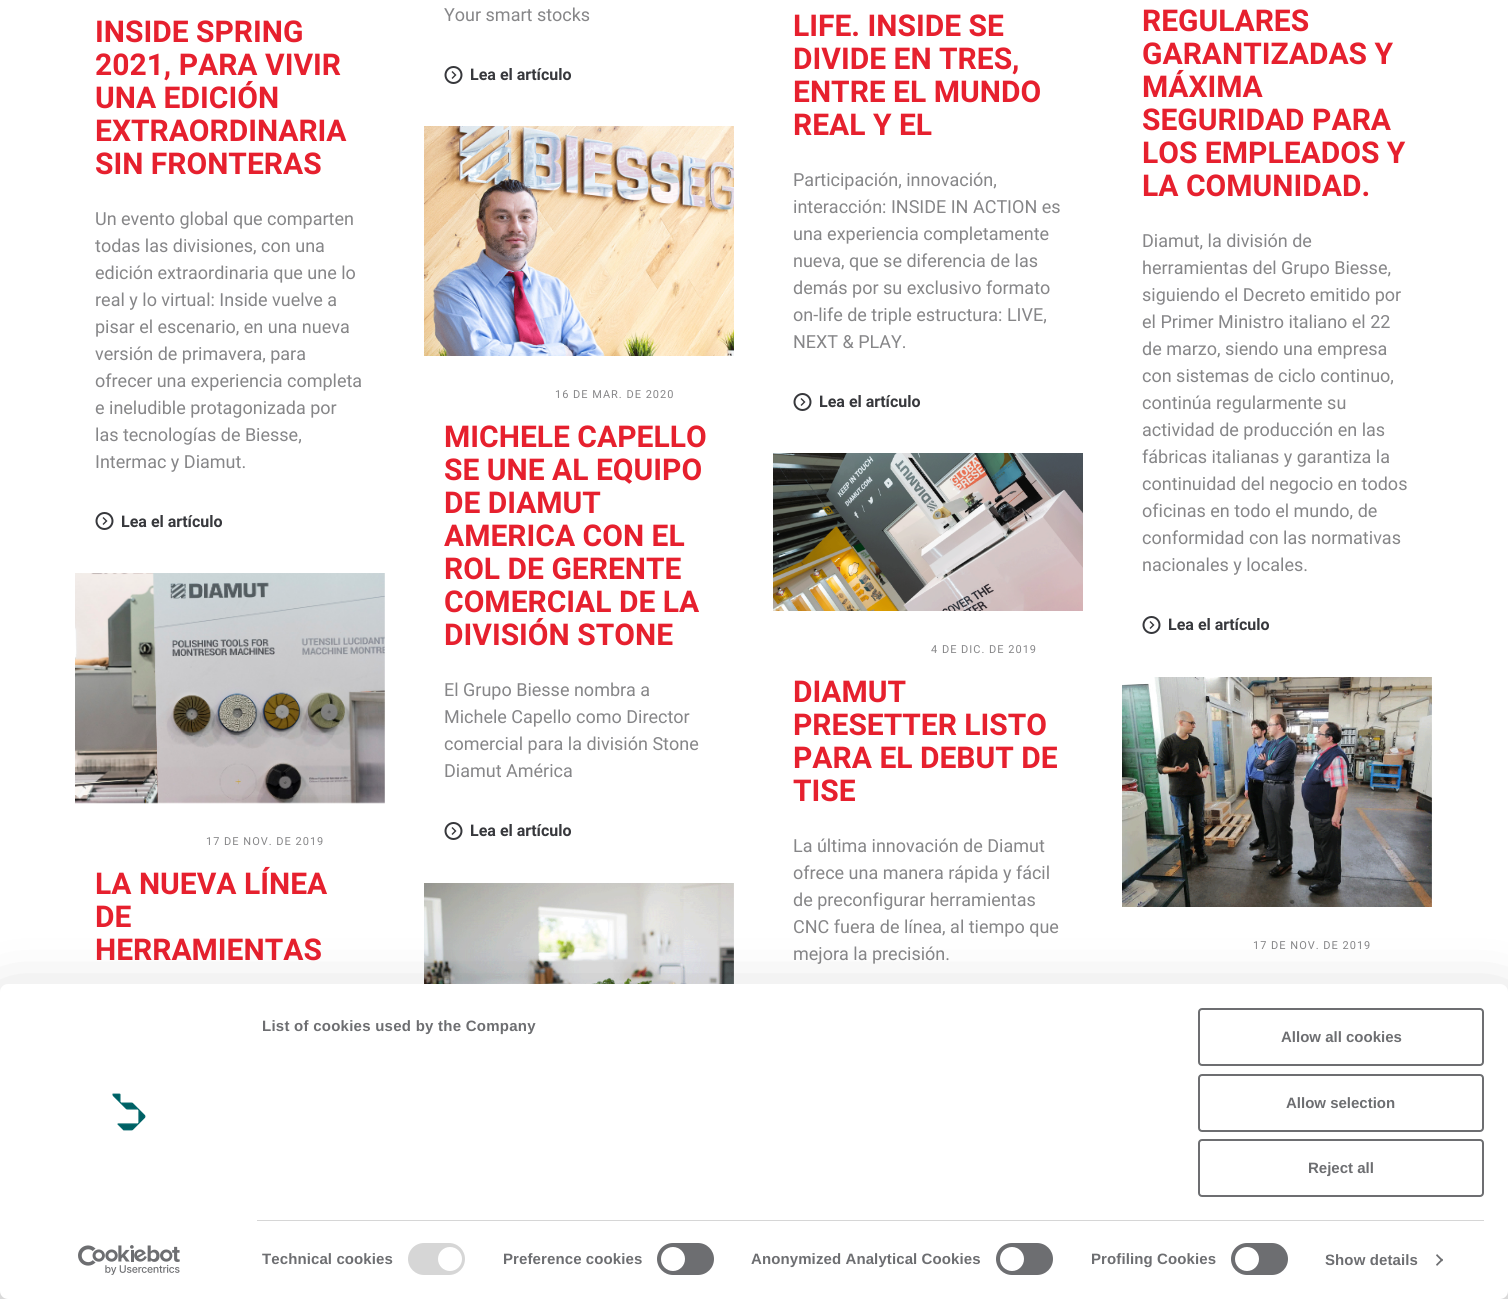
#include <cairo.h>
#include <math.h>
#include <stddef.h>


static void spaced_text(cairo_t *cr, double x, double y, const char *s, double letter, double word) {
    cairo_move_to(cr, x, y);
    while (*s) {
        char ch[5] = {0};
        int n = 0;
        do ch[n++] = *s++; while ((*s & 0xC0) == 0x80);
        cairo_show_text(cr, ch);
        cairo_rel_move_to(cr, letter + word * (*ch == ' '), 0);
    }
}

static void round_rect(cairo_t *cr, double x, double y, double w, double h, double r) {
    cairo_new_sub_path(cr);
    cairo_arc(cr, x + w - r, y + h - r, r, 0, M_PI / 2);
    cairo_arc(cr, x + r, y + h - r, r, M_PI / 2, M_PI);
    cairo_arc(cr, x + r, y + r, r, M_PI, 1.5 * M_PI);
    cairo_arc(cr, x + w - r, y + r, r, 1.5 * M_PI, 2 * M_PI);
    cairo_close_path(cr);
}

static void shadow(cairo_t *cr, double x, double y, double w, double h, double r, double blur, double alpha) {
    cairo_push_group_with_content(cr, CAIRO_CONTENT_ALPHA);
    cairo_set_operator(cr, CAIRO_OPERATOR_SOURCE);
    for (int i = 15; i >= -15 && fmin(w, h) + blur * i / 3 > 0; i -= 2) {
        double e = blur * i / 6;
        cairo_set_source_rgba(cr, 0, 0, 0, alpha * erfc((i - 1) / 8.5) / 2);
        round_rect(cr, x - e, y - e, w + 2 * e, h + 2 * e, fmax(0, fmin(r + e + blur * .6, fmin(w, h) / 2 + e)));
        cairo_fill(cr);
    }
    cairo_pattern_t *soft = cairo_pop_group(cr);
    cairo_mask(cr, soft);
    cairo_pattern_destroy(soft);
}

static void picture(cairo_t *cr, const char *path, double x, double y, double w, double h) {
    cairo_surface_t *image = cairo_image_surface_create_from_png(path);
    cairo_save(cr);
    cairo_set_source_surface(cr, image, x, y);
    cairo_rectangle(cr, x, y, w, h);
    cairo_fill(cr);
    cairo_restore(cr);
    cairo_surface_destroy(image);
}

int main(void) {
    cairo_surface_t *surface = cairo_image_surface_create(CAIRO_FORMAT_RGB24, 1508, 1299);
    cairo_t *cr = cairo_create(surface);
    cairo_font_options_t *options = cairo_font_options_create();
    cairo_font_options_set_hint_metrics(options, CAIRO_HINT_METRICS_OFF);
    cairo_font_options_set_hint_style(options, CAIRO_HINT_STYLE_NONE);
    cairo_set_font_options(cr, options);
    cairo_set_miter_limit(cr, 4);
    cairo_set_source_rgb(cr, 1, 1, 1);
    cairo_paint(cr);
    cairo_select_font_face(cr, "Roboto", CAIRO_FONT_SLANT_NORMAL, CAIRO_FONT_WEIGHT_BOLD);
    cairo_set_font_size(cr, 30);
    cairo_set_source_rgb(cr, 0.902, 0.125, 0.18);
    cairo_move_to(cr, 95, 42);
    cairo_show_text(cr, "INSIDE SPRING");
    cairo_move_to(cr, 95, 75);
    cairo_show_text(cr, "2021, PARA VIVIR");
    cairo_move_to(cr, 95, 108);
    cairo_show_text(cr, "UNA EDICIÓN");
    cairo_move_to(cr, 95, 141);
    cairo_show_text(cr, "EXTRAORDINARIA");
    cairo_move_to(cr, 95, 174);
    cairo_show_text(cr, "SIN FRONTERAS");
    cairo_select_font_face(cr, "Roboto", CAIRO_FONT_SLANT_NORMAL, CAIRO_FONT_WEIGHT_NORMAL);
    cairo_set_font_size(cr, 18);
    cairo_set_source_rgb(cr, 0.525, 0.525, 0.533);
    cairo_move_to(cr, 95, 225);
    cairo_show_text(cr, "Un evento global que comparten");
    cairo_move_to(cr, 95, 252);
    cairo_show_text(cr, "todas las divisiones, con una");
    cairo_move_to(cr, 95, 279);
    cairo_show_text(cr, "edición extraordinaria que une lo");
    cairo_move_to(cr, 95, 306);
    cairo_show_text(cr, "real y lo virtual: Inside vuelve a");
    cairo_move_to(cr, 95, 333);
    cairo_show_text(cr, "pisar el escenario, en una nueva");
    cairo_move_to(cr, 95, 360);
    cairo_show_text(cr, "versión de primavera, para");
    cairo_move_to(cr, 95, 387);
    cairo_show_text(cr, "ofrecer una experiencia completa");
    cairo_move_to(cr, 95, 414);
    cairo_show_text(cr, "e ineludible protagonizada por");
    cairo_move_to(cr, 95, 441);
    cairo_show_text(cr, "las tecnologías de Biesse,");
    cairo_move_to(cr, 95, 468);
    cairo_show_text(cr, "Intermac y Diamut.");
    picture(cr, "img1.png", 95, 512, 19, 18);
    cairo_select_font_face(cr, "Roboto", CAIRO_FONT_SLANT_NORMAL, CAIRO_FONT_WEIGHT_BOLD);
    cairo_set_font_size(cr, 16);
    cairo_set_source_rgb(cr, 0.216, 0.22, 0.235);
    cairo_move_to(cr, 121, 527);
    cairo_show_text(cr, "Lea el artículo");
    cairo_select_font_face(cr, "Roboto", CAIRO_FONT_SLANT_NORMAL, CAIRO_FONT_WEIGHT_NORMAL);
    cairo_set_font_size(cr, 18);
    cairo_set_source_rgb(cr, 0.525, 0.525, 0.533);
    cairo_move_to(cr, 444, 21);
    cairo_show_text(cr, "Your smart stocks");
    picture(cr, "img1.png", 444, 66, 19, 18);
    cairo_select_font_face(cr, "Roboto", CAIRO_FONT_SLANT_NORMAL, CAIRO_FONT_WEIGHT_BOLD);
    cairo_set_font_size(cr, 16);
    cairo_set_source_rgb(cr, 0.216, 0.22, 0.235);
    cairo_move_to(cr, 470, 80);
    cairo_show_text(cr, "Lea el artículo");
    cairo_set_font_size(cr, 30);
    cairo_set_source_rgb(cr, 0.902, 0.125, 0.18);
    cairo_move_to(cr, 793, 36);
    cairo_show_text(cr, "LIFE. INSIDE SE");
    cairo_move_to(cr, 793, 69);
    cairo_show_text(cr, "DIVIDE EN TRES,");
    cairo_move_to(cr, 793, 102);
    cairo_show_text(cr, "ENTRE EL MUNDO");
    cairo_move_to(cr, 793, 135);
    cairo_show_text(cr, "REAL Y EL");
    cairo_select_font_face(cr, "Roboto", CAIRO_FONT_SLANT_NORMAL, CAIRO_FONT_WEIGHT_NORMAL);
    cairo_set_font_size(cr, 18);
    cairo_set_source_rgb(cr, 0.525, 0.525, 0.533);
    cairo_move_to(cr, 793, 186);
    cairo_show_text(cr, "Participación, innovación,");
    cairo_move_to(cr, 793, 213);
    cairo_show_text(cr, "interacción: INSIDE IN ACTION es");
    cairo_move_to(cr, 793, 240);
    cairo_show_text(cr, "una experiencia completamente");
    cairo_move_to(cr, 793, 267);
    cairo_show_text(cr, "nueva, que se diferencia de las");
    cairo_move_to(cr, 793, 294);
    cairo_show_text(cr, "demás por su exclusivo formato");
    cairo_move_to(cr, 793, 321);
    cairo_show_text(cr, "on-life de triple estructura: LIVE,");
    cairo_move_to(cr, 793, 348);
    cairo_show_text(cr, "NEXT & PLAY.");
    picture(cr, "img1.png", 793, 393, 19, 18);
    cairo_select_font_face(cr, "Roboto", CAIRO_FONT_SLANT_NORMAL, CAIRO_FONT_WEIGHT_BOLD);
    cairo_set_font_size(cr, 16);
    cairo_set_source_rgb(cr, 0.216, 0.22, 0.235);
    cairo_move_to(cr, 819, 407);
    cairo_show_text(cr, "Lea el artículo");
    cairo_set_font_size(cr, 30);
    cairo_set_source_rgb(cr, 0.902, 0.125, 0.18);
    cairo_move_to(cr, 1142, 31);
    cairo_show_text(cr, "REGULARES");
    cairo_move_to(cr, 1142, 64);
    cairo_show_text(cr, "GARANTIZADAS Y");
    cairo_move_to(cr, 1142, 97);
    cairo_show_text(cr, "MÁXIMA");
    cairo_move_to(cr, 1142, 130);
    cairo_show_text(cr, "SEGURIDAD PARA");
    cairo_move_to(cr, 1142, 163);
    cairo_show_text(cr, "LOS EMPLEADOS Y");
    cairo_move_to(cr, 1142, 196);
    cairo_show_text(cr, "LA COMUNIDAD.");
    cairo_select_font_face(cr, "Roboto", CAIRO_FONT_SLANT_NORMAL, CAIRO_FONT_WEIGHT_NORMAL);
    cairo_set_font_size(cr, 18);
    cairo_set_source_rgb(cr, 0.525, 0.525, 0.533);
    cairo_move_to(cr, 1142, 247);
    cairo_show_text(cr, "Diamut, la división de");
    cairo_move_to(cr, 1142, 274);
    cairo_show_text(cr, "herramientas del Grupo Biesse,");
    cairo_move_to(cr, 1142, 301);
    cairo_show_text(cr, "siguiendo el Decreto emitido por");
    cairo_move_to(cr, 1142, 328);
    cairo_show_text(cr, "el Primer Ministro italiano el 22");
    cairo_move_to(cr, 1142, 355);
    cairo_show_text(cr, "de marzo, siendo una empresa");
    cairo_move_to(cr, 1142, 382);
    cairo_show_text(cr, "con sistemas de ciclo continuo,");
    cairo_move_to(cr, 1142, 409);
    cairo_show_text(cr, "continúa regularmente su");
    cairo_move_to(cr, 1142, 436);
    cairo_show_text(cr, "actividad de producción en las");
    cairo_move_to(cr, 1142, 463);
    cairo_show_text(cr, "fábricas italianas y garantiza la");
    cairo_move_to(cr, 1142, 490);
    cairo_show_text(cr, "continuidad del negocio en todos");
    cairo_move_to(cr, 1142, 517);
    cairo_show_text(cr, "oficinas en todo el mundo, de");
    cairo_move_to(cr, 1142, 544);
    cairo_show_text(cr, "conformidad con las normativas");
    cairo_move_to(cr, 1142, 571);
    cairo_show_text(cr, "nacionales y locales.");
    picture(cr, "img1.png", 1142, 616, 19, 18);
    cairo_select_font_face(cr, "Roboto", CAIRO_FONT_SLANT_NORMAL, CAIRO_FONT_WEIGHT_BOLD);
    cairo_set_font_size(cr, 16);
    cairo_set_source_rgb(cr, 0.216, 0.22, 0.235);
    cairo_move_to(cr, 1168, 630);
    cairo_show_text(cr, "Lea el artículo");
    picture(cr, "img2.png", 75, 573, 310, 231);
    cairo_select_font_face(cr, "Roboto", CAIRO_FONT_SLANT_NORMAL, CAIRO_FONT_WEIGHT_NORMAL);
    cairo_set_font_size(cr, 11);
    cairo_set_source_rgb(cr, 0.525, 0.525, 0.533);
    spaced_text(cr, 206, 845, "17 DE NOV. DE 2019", 1, 0);
    cairo_select_font_face(cr, "Roboto", CAIRO_FONT_SLANT_NORMAL, CAIRO_FONT_WEIGHT_BOLD);
    cairo_set_font_size(cr, 30);
    cairo_set_source_rgb(cr, 0.902, 0.125, 0.18);
    cairo_move_to(cr, 95, 894);
    cairo_show_text(cr, "LA NUEVA LÍNEA");
    cairo_move_to(cr, 95, 927);
    cairo_show_text(cr, "DE");
    cairo_move_to(cr, 95, 960);
    cairo_show_text(cr, "HERRAMIENTAS");
    picture(cr, "img3.png", 424, 126, 310, 230);
    cairo_select_font_face(cr, "Roboto", CAIRO_FONT_SLANT_NORMAL, CAIRO_FONT_WEIGHT_NORMAL);
    cairo_set_font_size(cr, 11);
    cairo_set_source_rgb(cr, 0.525, 0.525, 0.533);
    spaced_text(cr, 555, 398, "16 DE MAR. DE 2020", 1, 0);
    cairo_select_font_face(cr, "Roboto", CAIRO_FONT_SLANT_NORMAL, CAIRO_FONT_WEIGHT_BOLD);
    cairo_set_font_size(cr, 30);
    cairo_set_source_rgb(cr, 0.902, 0.125, 0.18);
    cairo_move_to(cr, 444, 447);
    cairo_show_text(cr, "MICHELE CAPELLO");
    cairo_move_to(cr, 444, 480);
    cairo_show_text(cr, "SE UNE AL EQUIPO");
    cairo_move_to(cr, 444, 513);
    cairo_show_text(cr, "DE DIAMUT");
    cairo_move_to(cr, 444, 546);
    cairo_show_text(cr, "AMERICA CON EL");
    cairo_move_to(cr, 444, 579);
    cairo_show_text(cr, "ROL DE GERENTE");
    cairo_move_to(cr, 444, 612);
    cairo_show_text(cr, "COMERCIAL DE LA");
    cairo_move_to(cr, 444, 645);
    cairo_show_text(cr, "DIVISIÓN STONE");
    cairo_select_font_face(cr, "Roboto", CAIRO_FONT_SLANT_NORMAL, CAIRO_FONT_WEIGHT_NORMAL);
    cairo_set_font_size(cr, 18);
    cairo_set_source_rgb(cr, 0.525, 0.525, 0.533);
    cairo_move_to(cr, 444, 696);
    cairo_show_text(cr, "El Grupo Biesse nombra a");
    cairo_move_to(cr, 444, 723);
    cairo_show_text(cr, "Michele Capello como Director");
    cairo_move_to(cr, 444, 750);
    cairo_show_text(cr, "comercial para la división Stone");
    cairo_move_to(cr, 444, 777);
    cairo_show_text(cr, "Diamut América");
    picture(cr, "img1.png", 444, 822, 19, 18);
    cairo_select_font_face(cr, "Roboto", CAIRO_FONT_SLANT_NORMAL, CAIRO_FONT_WEIGHT_BOLD);
    cairo_set_font_size(cr, 16);
    cairo_set_source_rgb(cr, 0.216, 0.22, 0.235);
    cairo_move_to(cr, 470, 836);
    cairo_show_text(cr, "Lea el artículo");
    picture(cr, "img4.png", 773, 453, 310, 158);
    cairo_select_font_face(cr, "Roboto", CAIRO_FONT_SLANT_NORMAL, CAIRO_FONT_WEIGHT_NORMAL);
    cairo_set_font_size(cr, 11);
    cairo_set_source_rgb(cr, 0.525, 0.525, 0.533);
    spaced_text(cr, 931, 653, "4 DE DIC. DE 2019", 1, 0);
    cairo_select_font_face(cr, "Roboto", CAIRO_FONT_SLANT_NORMAL, CAIRO_FONT_WEIGHT_BOLD);
    cairo_set_font_size(cr, 30);
    cairo_set_source_rgb(cr, 0.902, 0.125, 0.18);
    cairo_move_to(cr, 793, 702);
    cairo_show_text(cr, "DIAMUT");
    cairo_move_to(cr, 793, 735);
    cairo_show_text(cr, "PRESETTER LISTO");
    cairo_move_to(cr, 793, 768);
    cairo_show_text(cr, "PARA EL DEBUT DE");
    cairo_move_to(cr, 793, 801);
    cairo_show_text(cr, "TISE");
    cairo_select_font_face(cr, "Roboto", CAIRO_FONT_SLANT_NORMAL, CAIRO_FONT_WEIGHT_NORMAL);
    cairo_set_font_size(cr, 18);
    cairo_set_source_rgb(cr, 0.525, 0.525, 0.533);
    cairo_move_to(cr, 793, 852);
    cairo_show_text(cr, "La última innovación de Diamut");
    cairo_move_to(cr, 793, 879);
    cairo_show_text(cr, "ofrece una manera rápida y fácil");
    cairo_move_to(cr, 793, 906);
    cairo_show_text(cr, "de preconfigurar herramientas");
    cairo_move_to(cr, 793, 933);
    cairo_show_text(cr, "CNC fuera de línea, al tiempo que");
    cairo_move_to(cr, 793, 960);
    cairo_show_text(cr, "mejora la precisión.");
    picture(cr, "img5.png", 424, 883, 310, 101);
    picture(cr, "img6.png", 1122, 677, 310, 230);
    cairo_set_font_size(cr, 11);
    spaced_text(cr, 1253, 949, "17 DE NOV. DE 2019", 1, 0);
    cairo_set_source_rgb(cr, 0, 0, 0);
    shadow(cr, 0, 1014, 1508, 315, 8, 35, 0.3);
    cairo_set_source_rgb(cr, 1, 1, 1);
    round_rect(cr, 0, 984, 1508, 315, 8);
    cairo_fill(cr);
    cairo_select_font_face(cr, "Liberation Sans", CAIRO_FONT_SLANT_NORMAL, CAIRO_FONT_WEIGHT_BOLD);
    cairo_set_font_size(cr, 15);
    cairo_set_source_rgb(cr, 0.427, 0.431, 0.443);
    spaced_text(cr, 262, 1031, "List of cookies used by the Company", 0.25, 0);
    cairo_set_source_rgb(cr, 0.839, 0.839, 0.839);
    cairo_rectangle(cr, 257, 1220, 1227, 1);
    cairo_fill(cr);
    cairo_set_source_rgb(cr, 0.427, 0.431, 0.443);
    spaced_text(cr, 262, 1264, "Technical cookies", 0.1, 0);
    cairo_set_source_rgb(cr, 0.839, 0.839, 0.839);
    round_rect(cr, 408, 1243, 57, 32, 16);
    cairo_fill(cr);
    cairo_set_source_rgb(cr, 1, 1, 1);
    cairo_arc(cr, 450, 1259, 12, 0, 2 * M_PI);
    cairo_fill(cr);
    cairo_set_source_rgb(cr, 0.427, 0.431, 0.443);
    spaced_text(cr, 503, 1264, "Preference cookies", 0.1, 0);
    round_rect(cr, 657, 1243, 57, 32, 16);
    cairo_fill(cr);
    cairo_set_source_rgb(cr, 1, 1, 1);
    cairo_arc(cr, 673, 1259, 12, 0, 2 * M_PI);
    cairo_fill(cr);
    cairo_set_source_rgb(cr, 0.427, 0.431, 0.443);
    spaced_text(cr, 751, 1264, "Anonymized Analytical Cookies", 0.1, 0);
    round_rect(cr, 996, 1243, 57, 32, 16);
    cairo_fill(cr);
    cairo_set_source_rgb(cr, 1, 1, 1);
    cairo_arc(cr, 1012, 1259, 12, 0, 2 * M_PI);
    cairo_fill(cr);
    cairo_set_source_rgb(cr, 0.427, 0.431, 0.443);
    spaced_text(cr, 1091, 1264, "Profiling Cookies", 0.1, 0);
    round_rect(cr, 1231, 1243, 57, 32, 16);
    cairo_fill(cr);
    cairo_set_source_rgb(cr, 1, 1, 1);
    cairo_arc(cr, 1247, 1259, 12, 0, 2 * M_PI);
    cairo_fill(cr);
    cairo_set_source_rgb(cr, 0.427, 0.431, 0.443);
    spaced_text(cr, 1325, 1265, "Show details", 0.1, 0);
    cairo_new_path(cr);
    cairo_move_to(cr, 1437, 1254);
    cairo_line_to(cr, 1443, 1260);
    cairo_line_to(cr, 1442, 1261.5);
    cairo_line_to(cr, 1436, 1255.5);
    cairo_close_path(cr);
    cairo_fill(cr);
    cairo_new_path(cr);
    cairo_move_to(cr, 1442, 1258.5);
    cairo_line_to(cr, 1443, 1260);
    cairo_line_to(cr, 1437, 1266);
    cairo_line_to(cr, 1436, 1264.5);
    cairo_close_path(cr);
    cairo_fill(cr);
    picture(cr, "img7.png", 112, 1093, 34, 38);
    picture(cr, "img8.png", 78, 1245, 102, 30);
    round_rect(cr, 1199, 1009, 284, 56, 3);
    cairo_stroke(cr);
    cairo_move_to(cr, 1281, 1042);
    cairo_show_text(cr, "Allow all cookies");
    round_rect(cr, 1199, 1075, 284, 56, 3);
    cairo_stroke(cr);
    cairo_move_to(cr, 1286, 1108);
    cairo_show_text(cr, "Allow selection");
    round_rect(cr, 1199, 1140, 284, 56, 3);
    cairo_stroke(cr);
    cairo_move_to(cr, 1308, 1173);
    cairo_show_text(cr, "Reject all");
    cairo_surface_write_to_png(surface, "page.png");
    cairo_font_options_destroy(options);
    cairo_destroy(cr);
    cairo_surface_destroy(surface);
    return 0;
}
